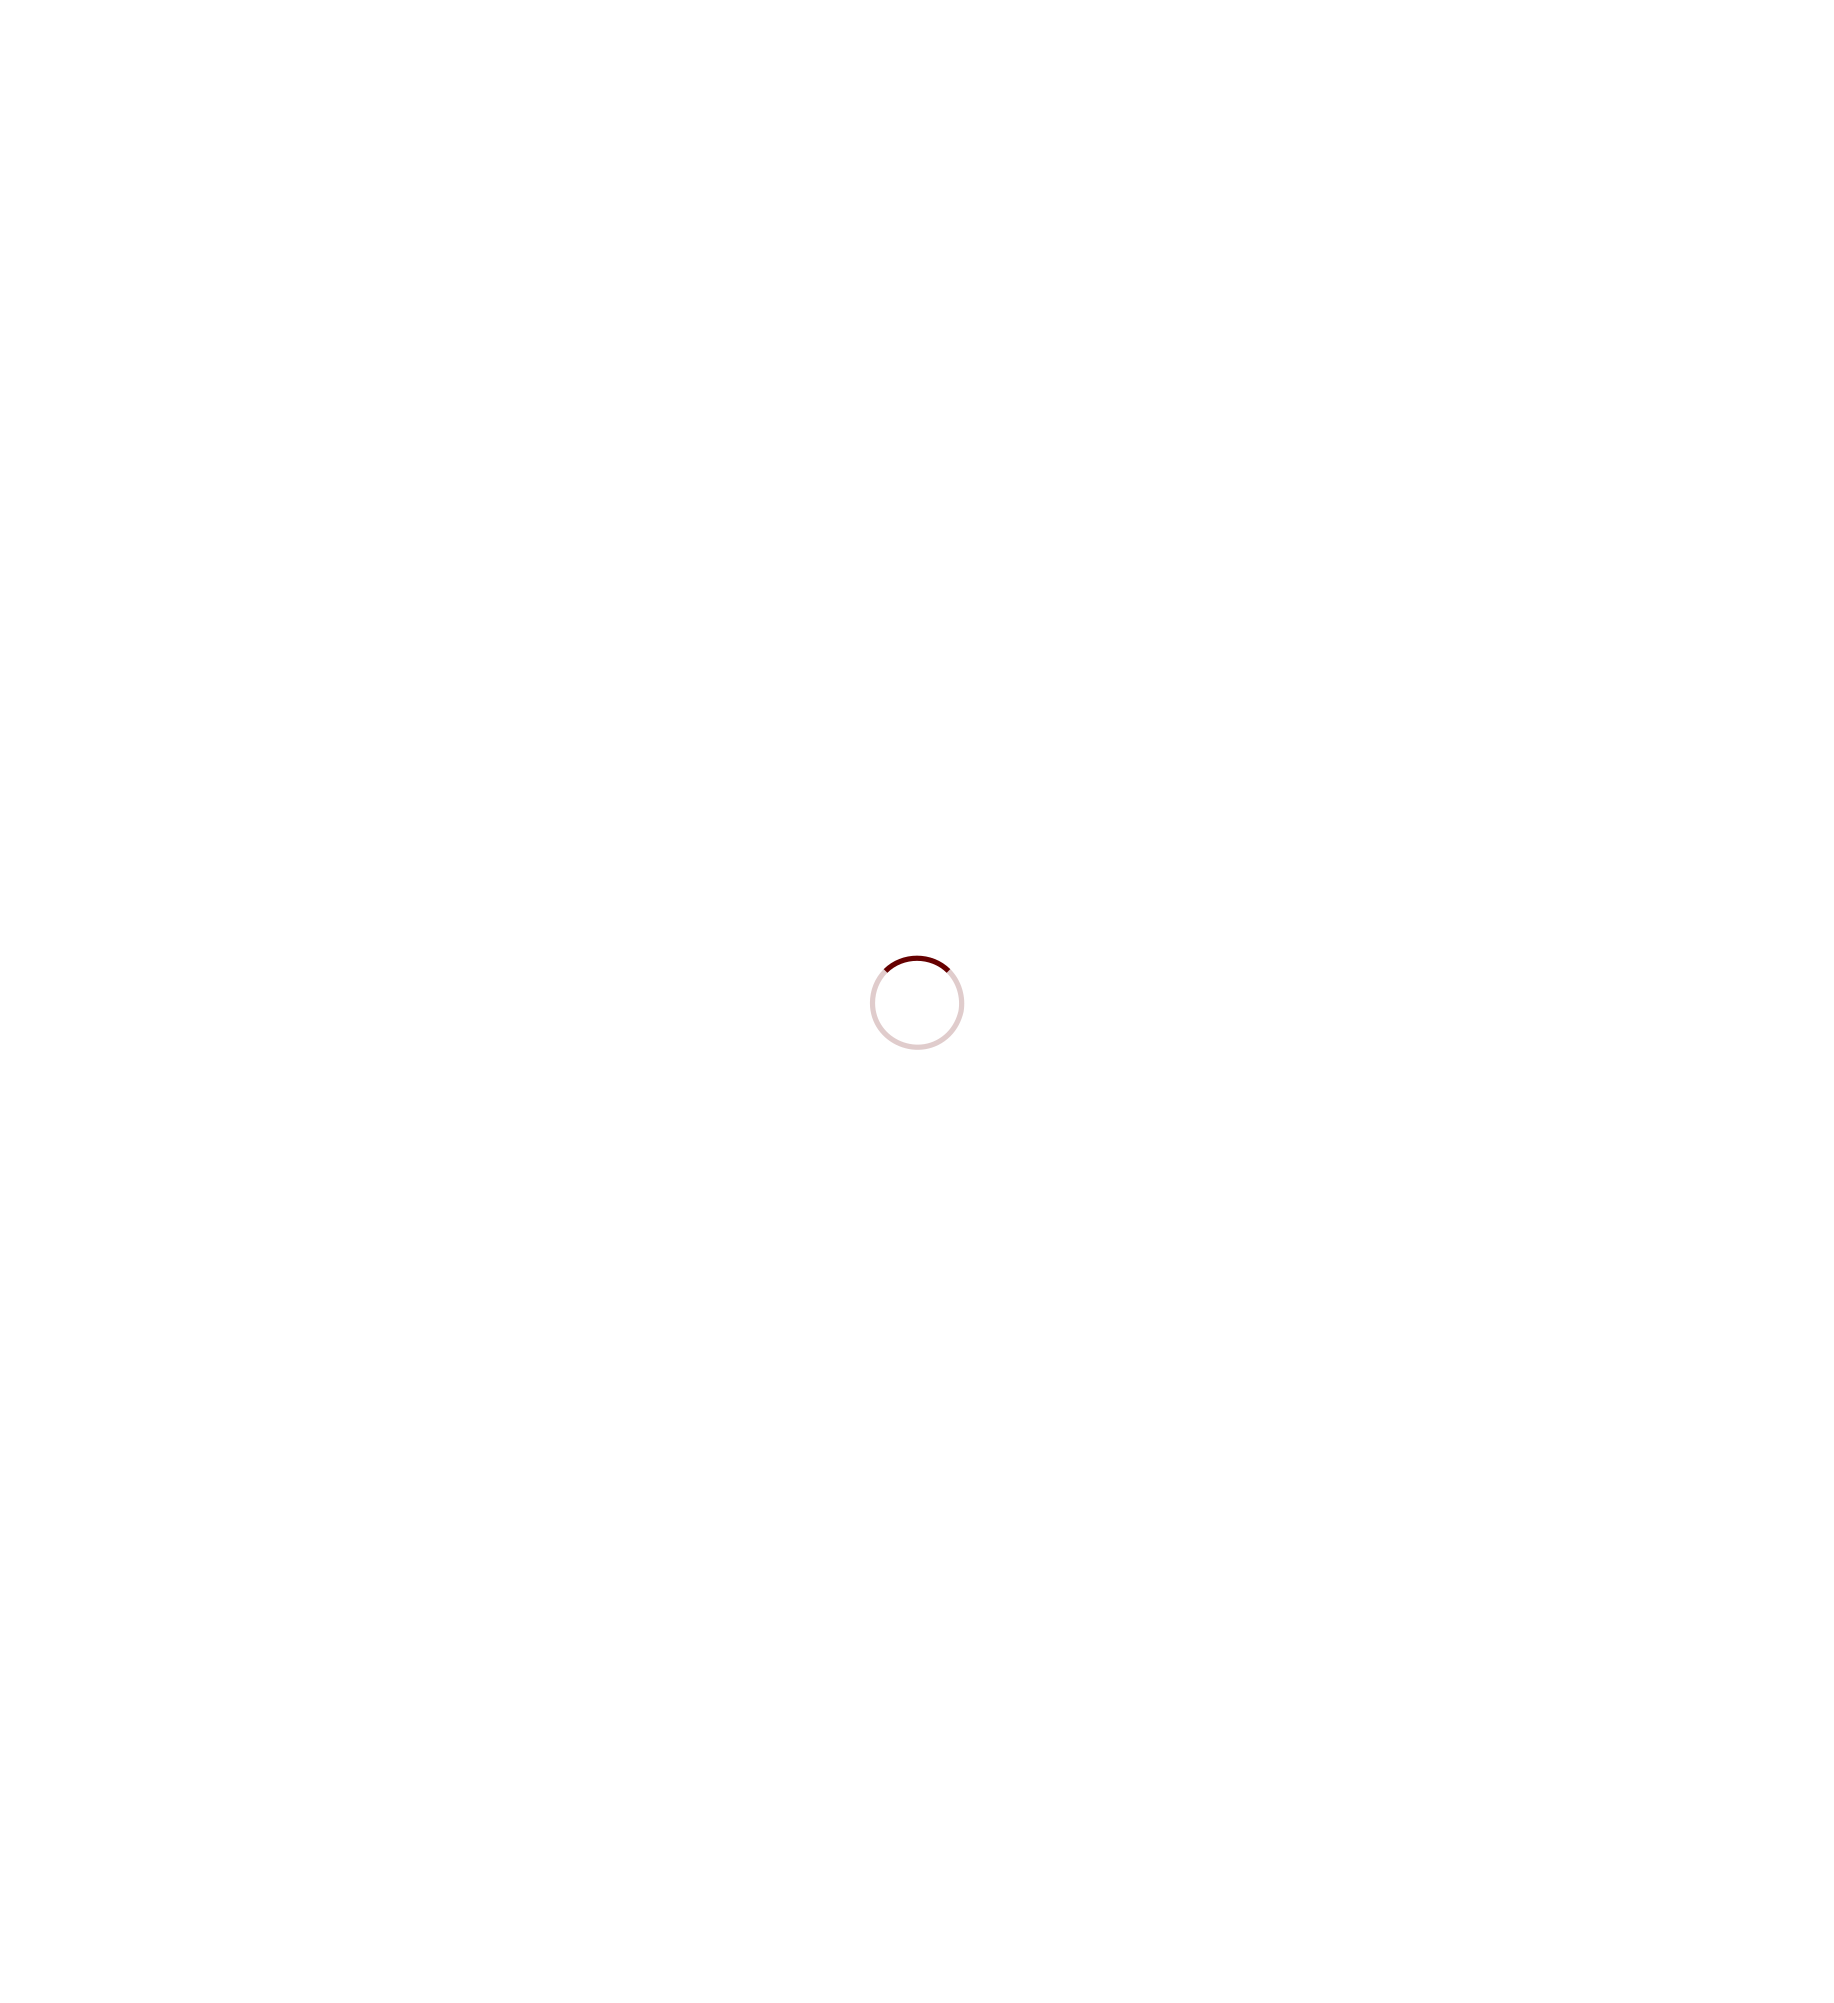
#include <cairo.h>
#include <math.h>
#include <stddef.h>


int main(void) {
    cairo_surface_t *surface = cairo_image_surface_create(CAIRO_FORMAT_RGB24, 1834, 2003);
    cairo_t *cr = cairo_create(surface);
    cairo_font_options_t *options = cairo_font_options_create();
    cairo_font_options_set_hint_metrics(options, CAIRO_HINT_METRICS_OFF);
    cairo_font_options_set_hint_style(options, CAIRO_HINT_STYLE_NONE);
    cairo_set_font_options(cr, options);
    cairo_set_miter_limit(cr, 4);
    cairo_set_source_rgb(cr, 1, 1, 1);
    cairo_paint(cr);
    cairo_new_path(cr);
    cairo_move_to(cr, 885.5, 971);
    cairo_curve_to(cr, 902.5, 954, 931.5, 954, 948.5, 971);
    cairo_set_source_rgb(cr, 0.4, 0, 0);
    cairo_set_line_width(cr, 5.2);
    cairo_stroke(cr);
    cairo_new_path(cr);
    cairo_move_to(cr, 948.5, 971);
    cairo_curve_to(cr, 959, 981.5, 963.5, 997, 961, 1011.5);
    cairo_curve_to(cr, 959, 1020, 955, 1028, 948.5, 1034.5);
    cairo_curve_to(cr, 920.5, 1062, 872.5, 1042, 872.5, 1003);
    cairo_curve_to(cr, 872.5, 991, 877, 979.5, 885.5, 971);
    cairo_set_source_rgba(cr, 0.4, 0, 0, 0.2);
    cairo_stroke(cr);
    cairo_surface_write_to_png(surface, "page.png");
    cairo_font_options_destroy(options);
    cairo_destroy(cr);
    cairo_surface_destroy(surface);
    return 0;
}
